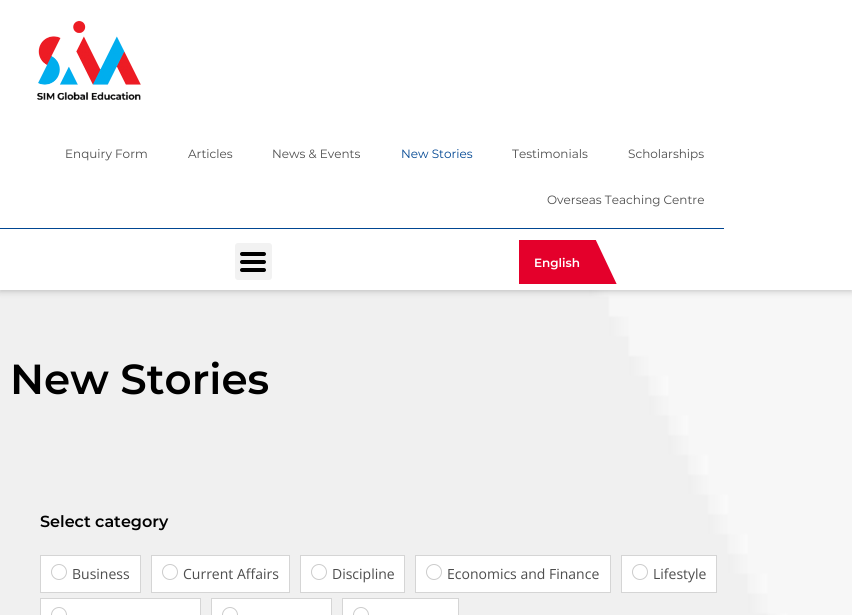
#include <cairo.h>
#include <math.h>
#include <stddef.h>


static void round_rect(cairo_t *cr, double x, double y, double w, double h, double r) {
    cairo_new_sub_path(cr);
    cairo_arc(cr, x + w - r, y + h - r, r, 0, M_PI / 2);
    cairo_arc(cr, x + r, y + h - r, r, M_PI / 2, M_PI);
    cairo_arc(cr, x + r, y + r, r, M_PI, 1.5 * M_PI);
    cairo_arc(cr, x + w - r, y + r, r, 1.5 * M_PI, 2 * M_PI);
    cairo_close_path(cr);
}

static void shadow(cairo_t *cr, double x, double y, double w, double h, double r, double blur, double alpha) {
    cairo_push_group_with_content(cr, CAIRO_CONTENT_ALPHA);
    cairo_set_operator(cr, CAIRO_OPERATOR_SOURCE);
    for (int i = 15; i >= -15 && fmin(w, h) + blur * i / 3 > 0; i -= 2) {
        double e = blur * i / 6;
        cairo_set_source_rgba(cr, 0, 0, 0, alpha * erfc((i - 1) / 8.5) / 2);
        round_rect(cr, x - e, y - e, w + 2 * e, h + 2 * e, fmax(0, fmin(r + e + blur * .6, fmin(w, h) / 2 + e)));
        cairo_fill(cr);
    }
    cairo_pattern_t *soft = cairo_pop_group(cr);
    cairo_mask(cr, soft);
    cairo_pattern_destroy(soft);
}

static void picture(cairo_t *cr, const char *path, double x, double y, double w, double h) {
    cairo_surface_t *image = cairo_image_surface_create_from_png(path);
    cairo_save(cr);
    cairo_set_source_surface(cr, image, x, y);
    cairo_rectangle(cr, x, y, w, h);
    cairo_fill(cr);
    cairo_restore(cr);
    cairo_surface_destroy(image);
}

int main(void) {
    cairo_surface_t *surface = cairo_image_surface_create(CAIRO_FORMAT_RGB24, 852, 615);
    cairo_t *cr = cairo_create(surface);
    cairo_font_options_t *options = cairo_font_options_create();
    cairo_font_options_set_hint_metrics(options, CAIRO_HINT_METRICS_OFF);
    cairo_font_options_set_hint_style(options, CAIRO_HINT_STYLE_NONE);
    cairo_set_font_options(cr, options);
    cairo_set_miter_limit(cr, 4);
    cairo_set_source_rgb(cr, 1, 1, 1);
    cairo_paint(cr);
    picture(cr, "img1.png", 0, 290, 852, 325);
    cairo_set_source_rgb(cr, 0, 0, 0);
    shadow(cr, 0, 0, 852, 290, 0, 4, 0.28);
    cairo_set_source_rgb(cr, 1, 1, 1);
    cairo_rectangle(cr, 0, 0, 852, 290);
    cairo_fill(cr);
    picture(cr, "img2.png", 37, 20, 104, 80);
    cairo_select_font_face(cr, "Montserrat", CAIRO_FONT_SLANT_NORMAL, CAIRO_FONT_WEIGHT_NORMAL);
    cairo_set_font_size(cr, 12);
    cairo_set_source_rgb(cr, 0.302, 0.302, 0.302);
    cairo_move_to(cr, 65, 158);
    cairo_show_text(cr, "Enquiry Form");
    cairo_move_to(cr, 188, 158);
    cairo_show_text(cr, "Articles");
    cairo_move_to(cr, 272, 158);
    cairo_show_text(cr, "News & Events");
    cairo_set_source_rgb(cr, 0, 0.275, 0.573);
    cairo_move_to(cr, 401, 158);
    cairo_show_text(cr, "New Stories");
    cairo_set_source_rgb(cr, 0.302, 0.302, 0.302);
    cairo_move_to(cr, 512, 158);
    cairo_show_text(cr, "Testimonials");
    cairo_move_to(cr, 628, 158);
    cairo_show_text(cr, "Scholarships");
    cairo_move_to(cr, 547, 204);
    cairo_show_text(cr, "Overseas Teaching Centre");
    cairo_set_source_rgb(cr, 0, 0.275, 0.573);
    cairo_rectangle(cr, 0, 228, 724, 1);
    cairo_fill(cr);
    cairo_set_source_rgb(cr, 0.949, 0.949, 0.949);
    round_rect(cr, 235, 243, 37, 37, 3);
    cairo_fill(cr);
    cairo_set_source_rgb(cr, 0, 0, 0);
    round_rect(cr, 240, 260, 26, 4, 2);
    cairo_fill(cr);
    round_rect(cr, 240, 252, 26, 4, 2);
    cairo_fill(cr);
    round_rect(cr, 240, 268, 26, 4, 2);
    cairo_fill(cr);
    cairo_set_source_rgb(cr, 0.894, 0, 0.169);
    cairo_rectangle(cr, 519, 240, 98, 44);
    cairo_fill(cr);
    cairo_select_font_face(cr, "Montserrat SemiBold", CAIRO_FONT_SLANT_NORMAL, CAIRO_FONT_WEIGHT_NORMAL);
    cairo_set_source_rgb(cr, 1, 1, 1);
    cairo_move_to(cr, 534, 267);
    cairo_show_text(cr, "English");
    cairo_new_path(cr);
    cairo_move_to(cr, 592, 232);
    cairo_line_to(cr, 630, 232);
    cairo_line_to(cr, 656, 289);
    cairo_line_to(cr, 619, 289);
    cairo_close_path(cr);
    cairo_fill(cr);
    cairo_set_font_size(cr, 42);
    cairo_set_source_rgb(cr, 0, 0, 0);
    cairo_move_to(cr, 10, 394);
    cairo_show_text(cr, "New Stories");
    cairo_set_font_size(cr, 16);
    cairo_move_to(cr, 40, 527);
    cairo_show_text(cr, "Select category");
    cairo_set_source_rgb(cr, 1, 1, 1);
    cairo_rectangle(cr, 40.5, 555.5, 100, 37);
    cairo_fill_preserve(cr);
    cairo_set_source_rgb(cr, 0.835, 0.835, 0.835);
    cairo_set_line_width(cr, 1);
    cairo_stroke(cr);
    cairo_arc(cr, 59, 572, 7.5, 0, 2 * M_PI);
    cairo_set_source_rgb(cr, 0.8, 0.8, 0.8);
    cairo_stroke(cr);
    cairo_select_font_face(cr, "Open Sans", CAIRO_FONT_SLANT_NORMAL, CAIRO_FONT_WEIGHT_NORMAL);
    cairo_set_font_size(cr, 14);
    cairo_set_source_rgb(cr, 0.302, 0.302, 0.302);
    cairo_move_to(cr, 72, 579);
    cairo_show_text(cr, "Business");
    cairo_set_source_rgb(cr, 1, 1, 1);
    cairo_rectangle(cr, 151.5, 555.5, 138, 37);
    cairo_fill_preserve(cr);
    cairo_set_source_rgb(cr, 0.835, 0.835, 0.835);
    cairo_stroke(cr);
    cairo_arc(cr, 170, 572, 7.5, 0, 2 * M_PI);
    cairo_set_source_rgb(cr, 0.8, 0.8, 0.8);
    cairo_stroke(cr);
    cairo_set_source_rgb(cr, 0.302, 0.302, 0.302);
    cairo_move_to(cr, 183, 579);
    cairo_show_text(cr, "Current Affairs");
    cairo_set_source_rgb(cr, 1, 1, 1);
    cairo_rectangle(cr, 300.5, 555.5, 104, 37);
    cairo_fill_preserve(cr);
    cairo_set_source_rgb(cr, 0.835, 0.835, 0.835);
    cairo_stroke(cr);
    cairo_arc(cr, 319, 572, 7.5, 0, 2 * M_PI);
    cairo_set_source_rgb(cr, 0.8, 0.8, 0.8);
    cairo_stroke(cr);
    cairo_set_source_rgb(cr, 0.302, 0.302, 0.302);
    cairo_move_to(cr, 332, 579);
    cairo_show_text(cr, "Discipline");
    cairo_set_source_rgb(cr, 1, 1, 1);
    cairo_rectangle(cr, 415.5, 555.5, 195, 37);
    cairo_fill_preserve(cr);
    cairo_set_source_rgb(cr, 0.835, 0.835, 0.835);
    cairo_stroke(cr);
    cairo_arc(cr, 434, 572, 7.5, 0, 2 * M_PI);
    cairo_set_source_rgb(cr, 0.8, 0.8, 0.8);
    cairo_stroke(cr);
    cairo_set_source_rgb(cr, 0.302, 0.302, 0.302);
    cairo_move_to(cr, 447, 579);
    cairo_show_text(cr, "Economics and Finance");
    cairo_set_source_rgb(cr, 1, 1, 1);
    cairo_rectangle(cr, 621.5, 555.5, 95, 37);
    cairo_fill_preserve(cr);
    cairo_set_source_rgb(cr, 0.835, 0.835, 0.835);
    cairo_stroke(cr);
    cairo_arc(cr, 640, 572, 7.5, 0, 2 * M_PI);
    cairo_set_source_rgb(cr, 0.8, 0.8, 0.8);
    cairo_stroke(cr);
    cairo_set_source_rgb(cr, 0.302, 0.302, 0.302);
    cairo_move_to(cr, 653, 579);
    cairo_show_text(cr, "Lifestyle");
    cairo_set_source_rgb(cr, 1, 1, 1);
    cairo_rectangle(cr, 40.5, 598.5, 160, 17);
    cairo_fill_preserve(cr);
    cairo_set_source_rgb(cr, 0.835, 0.835, 0.835);
    cairo_stroke(cr);
    cairo_arc(cr, 59, 615, 7.5, 0, 2 * M_PI);
    cairo_set_source_rgb(cr, 0.8, 0.8, 0.8);
    cairo_stroke(cr);
    cairo_set_source_rgb(cr, 1, 1, 1);
    cairo_rectangle(cr, 211.5, 598.5, 120, 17);
    cairo_fill_preserve(cr);
    cairo_set_source_rgb(cr, 0.835, 0.835, 0.835);
    cairo_stroke(cr);
    cairo_arc(cr, 230, 615, 7.5, 0, 2 * M_PI);
    cairo_set_source_rgb(cr, 0.8, 0.8, 0.8);
    cairo_stroke(cr);
    cairo_set_source_rgb(cr, 1, 1, 1);
    cairo_rectangle(cr, 342.5, 598.5, 116, 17);
    cairo_fill_preserve(cr);
    cairo_set_source_rgb(cr, 0.835, 0.835, 0.835);
    cairo_stroke(cr);
    cairo_arc(cr, 361, 615, 7.5, 0, 2 * M_PI);
    cairo_set_source_rgb(cr, 0.8, 0.8, 0.8);
    cairo_stroke(cr);
    cairo_surface_write_to_png(surface, "page.png");
    cairo_font_options_destroy(options);
    cairo_destroy(cr);
    cairo_surface_destroy(surface);
    return 0;
}
